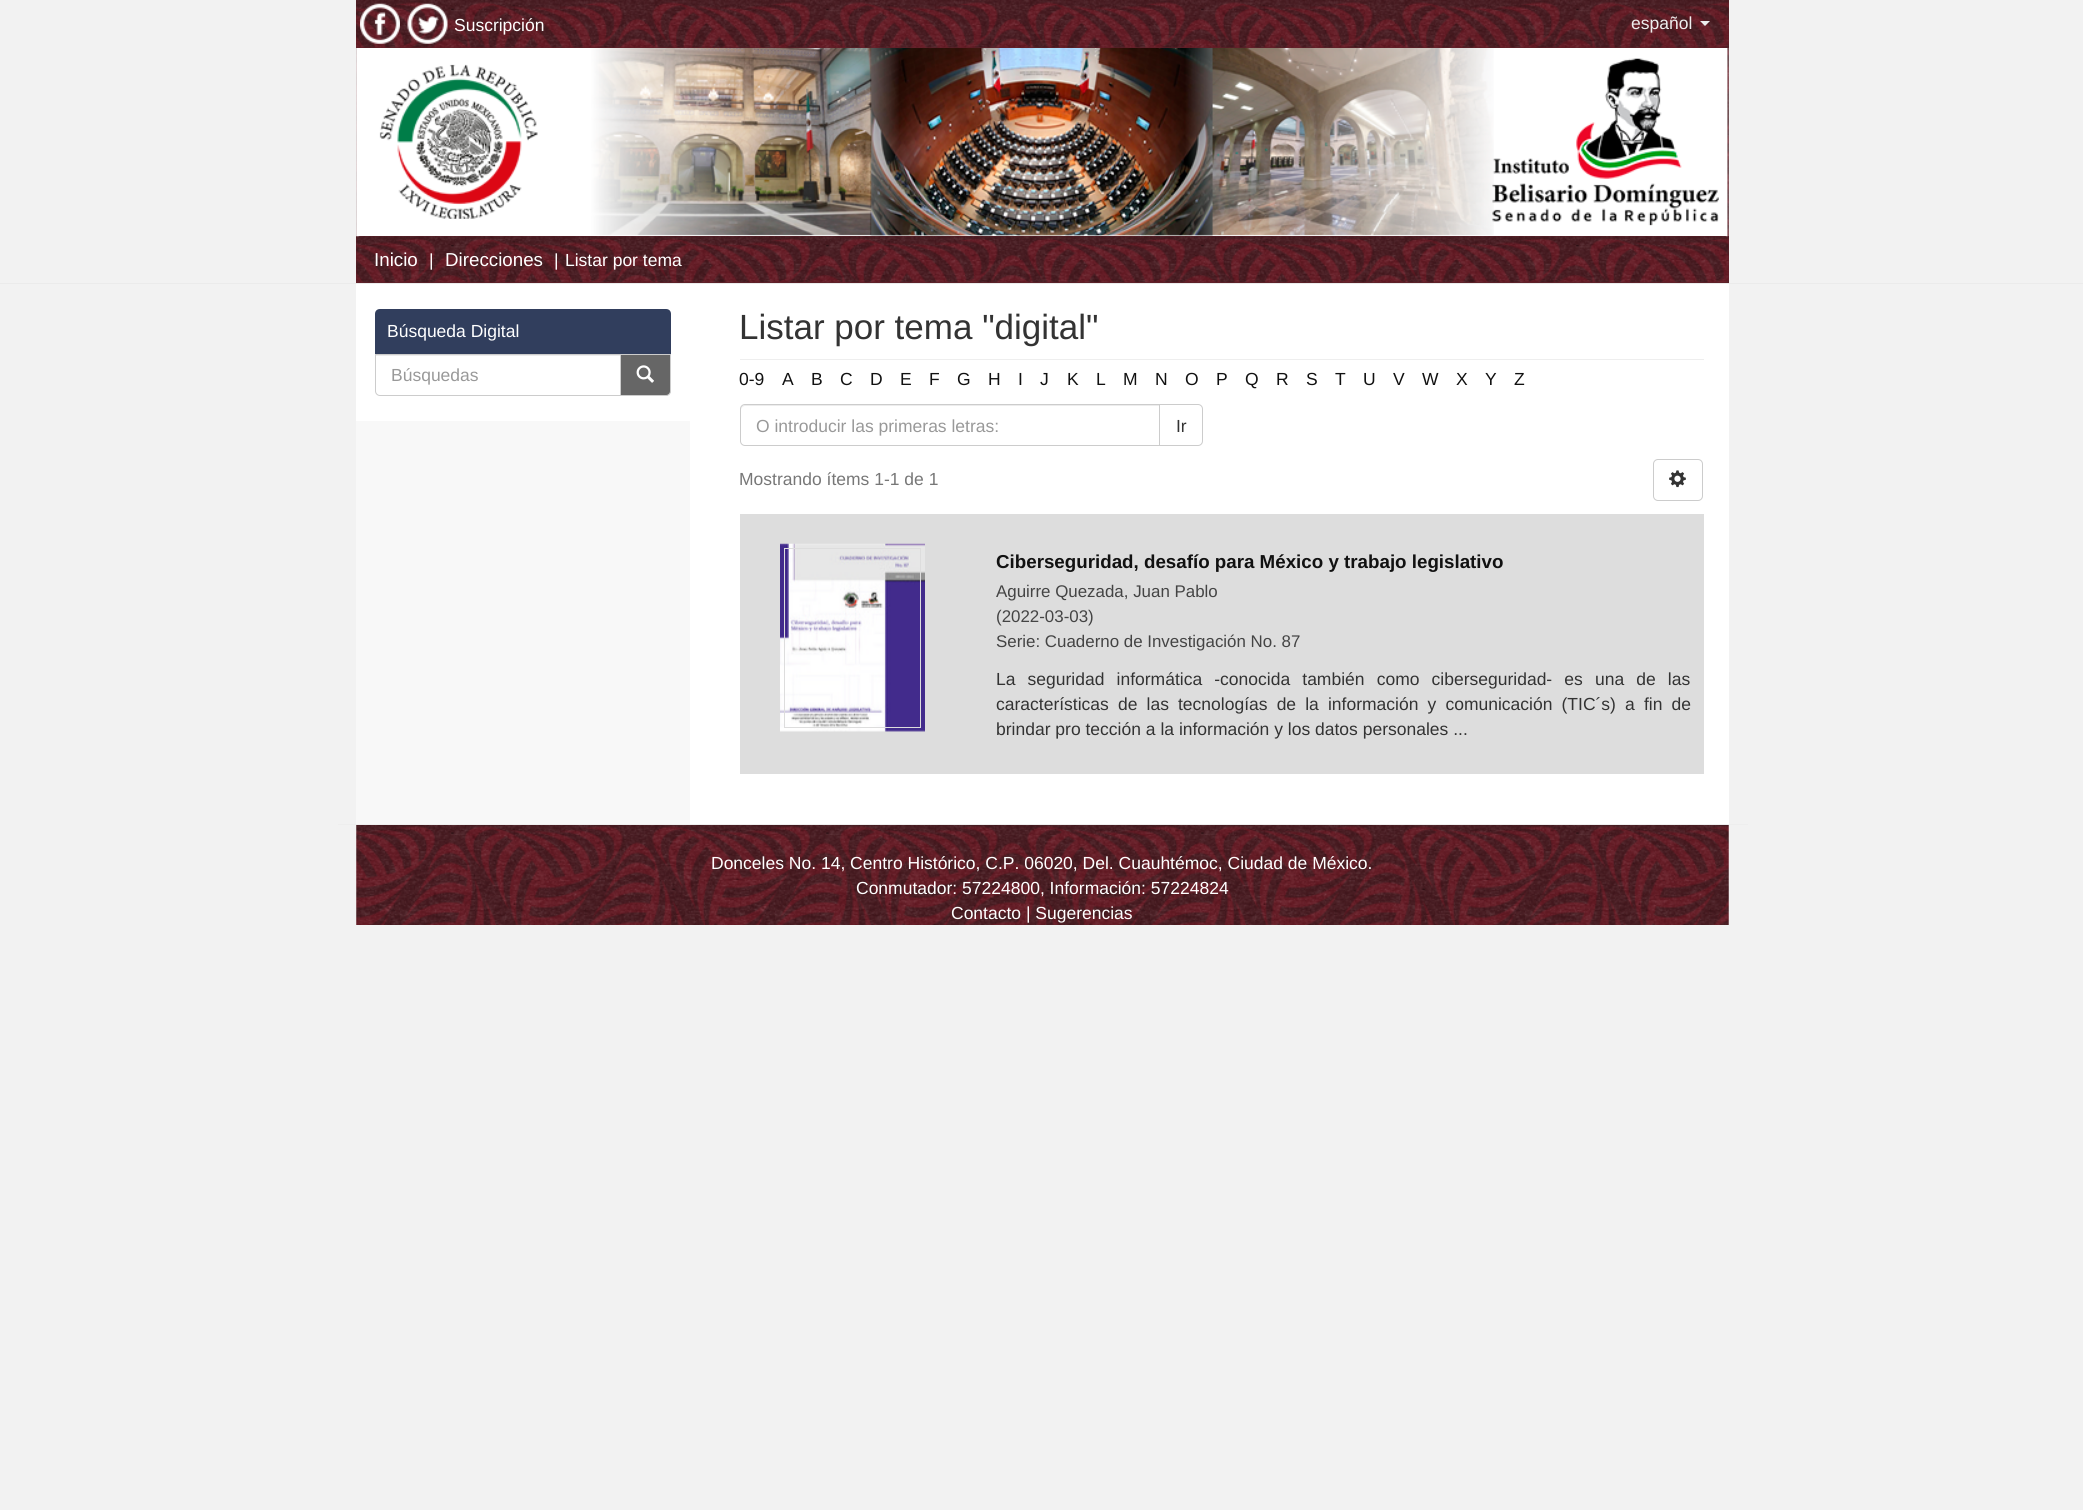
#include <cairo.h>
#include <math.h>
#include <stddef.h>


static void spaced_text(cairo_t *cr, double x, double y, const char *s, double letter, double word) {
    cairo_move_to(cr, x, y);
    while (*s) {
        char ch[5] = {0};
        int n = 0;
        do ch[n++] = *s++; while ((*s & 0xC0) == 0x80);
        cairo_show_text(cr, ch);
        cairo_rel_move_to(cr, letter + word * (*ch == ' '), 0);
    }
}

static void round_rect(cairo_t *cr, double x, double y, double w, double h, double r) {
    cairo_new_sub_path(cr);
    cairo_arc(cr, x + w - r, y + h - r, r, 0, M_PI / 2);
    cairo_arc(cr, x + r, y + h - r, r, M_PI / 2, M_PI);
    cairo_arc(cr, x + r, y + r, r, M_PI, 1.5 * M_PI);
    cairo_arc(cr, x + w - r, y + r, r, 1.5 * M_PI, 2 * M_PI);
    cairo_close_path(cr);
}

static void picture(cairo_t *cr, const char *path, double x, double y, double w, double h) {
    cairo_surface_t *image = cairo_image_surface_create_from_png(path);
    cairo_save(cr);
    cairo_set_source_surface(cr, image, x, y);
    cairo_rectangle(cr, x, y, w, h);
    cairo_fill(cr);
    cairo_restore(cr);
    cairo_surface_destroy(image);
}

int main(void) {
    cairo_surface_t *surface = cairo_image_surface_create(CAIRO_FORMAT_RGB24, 2083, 1510);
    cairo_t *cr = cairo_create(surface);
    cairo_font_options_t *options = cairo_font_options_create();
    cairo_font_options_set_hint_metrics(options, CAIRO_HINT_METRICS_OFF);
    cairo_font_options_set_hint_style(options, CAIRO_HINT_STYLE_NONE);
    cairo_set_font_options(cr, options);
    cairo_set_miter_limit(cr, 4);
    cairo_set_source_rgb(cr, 0.949, 0.949, 0.949);
    cairo_paint(cr);
    cairo_set_source_rgb(cr, 0.369, 0.129, 0.161);
    cairo_rectangle(cr, 356, 0, 1373, 48);
    cairo_fill(cr);
    picture(cr, "img1.png", 356, 0, 1373, 48);
    picture(cr, "img2.png", 360, 3, 40, 41);
    picture(cr, "img3.png", 407, 3, 41, 41);
    cairo_select_font_face(cr, "Liberation Sans", CAIRO_FONT_SLANT_NORMAL, CAIRO_FONT_WEIGHT_NORMAL);
    cairo_set_font_size(cr, 17.5);
    cairo_set_source_rgb(cr, 1, 1, 1);
    cairo_move_to(cr, 454, 31);
    cairo_show_text(cr, "Suscripción");
    cairo_set_source_rgb(cr, 0.933, 0.933, 0.933);
    cairo_move_to(cr, 1631, 29);
    cairo_show_text(cr, "español");
    cairo_new_path(cr);
    cairo_move_to(cr, 1700, 21);
    cairo_line_to(cr, 1710, 21);
    cairo_line_to(cr, 1705, 26);
    cairo_close_path(cr);
    cairo_fill(cr);
    picture(cr, "img4.png", 356, 48, 1373, 188);
    cairo_set_source_rgb(cr, 0.369, 0.129, 0.161);
    cairo_rectangle(cr, 356, 236, 1373, 47);
    cairo_fill(cr);
    picture(cr, "img6.png", 356, 236, 1373, 47);
    picture(cr, "img5.png", 356, 48, 1372, 189);
    cairo_set_source_rgb(cr, 0.918, 0.918, 0.918);
    cairo_rectangle(cr, 0, 283, 2083, 1);
    cairo_fill(cr);
    cairo_set_source_rgb(cr, 0.369, 0.129, 0.161);
    round_rect(cr, 356, 236, 1373, 47, 5);
    cairo_fill(cr);
    picture(cr, "img7.png", 356, 236, 1373, 47);
    cairo_set_font_size(cr, 18.75);
    cairo_set_source_rgb(cr, 1, 1, 1);
    cairo_move_to(cr, 374, 266);
    cairo_show_text(cr, "Inicio");
    cairo_set_font_size(cr, 17.5);
    cairo_move_to(cr, 429, 266);
    cairo_show_text(cr, "|");
    cairo_set_font_size(cr, 18.75);
    cairo_move_to(cr, 445, 266);
    cairo_show_text(cr, "Direcciones");
    cairo_set_font_size(cr, 17.5);
    cairo_move_to(cr, 554, 266);
    cairo_show_text(cr, "|");
    cairo_move_to(cr, 565, 266);
    cairo_show_text(cr, "Listar por tema");
    cairo_set_source_rgb(cr, 0.969, 0.969, 0.969);
    cairo_rectangle(cr, 356, 421, 334, 403);
    cairo_fill(cr);
    cairo_set_source_rgb(cr, 1, 1, 1);
    cairo_rectangle(cr, 356, 284, 334, 137);
    cairo_fill(cr);
    cairo_set_source_rgb(cr, 0.192, 0.243, 0.365);
    cairo_new_path(cr);
    cairo_move_to(cr, 380, 309);
    cairo_line_to(cr, 666, 309);
    cairo_curve_to(cr, 669, 309, 671, 311, 671, 314);
    cairo_line_to(cr, 671, 354);
    cairo_line_to(cr, 375, 354);
    cairo_line_to(cr, 375, 314);
    cairo_curve_to(cr, 375, 311, 377, 309, 380, 309);
    cairo_close_path(cr);
    cairo_fill(cr);
    cairo_set_source_rgb(cr, 1, 1, 1);
    cairo_move_to(cr, 387, 337);
    cairo_show_text(cr, "Búsqueda Digital");
    cairo_set_source_rgb(cr, 0.4, 0.4, 0.4);
    cairo_new_path(cr);
    cairo_move_to(cr, 620.5, 354.5);
    cairo_line_to(cr, 670.5, 354.5);
    cairo_line_to(cr, 670.5, 391);
    cairo_curve_to(cr, 670.5, 393.5, 668.5, 395.5, 666, 395.5);
    cairo_line_to(cr, 620.5, 395.5);
    cairo_close_path(cr);
    cairo_fill_preserve(cr);
    cairo_set_source_rgb(cr, 0.8, 0.8, 0.8);
    cairo_set_line_width(cr, 1);
    cairo_stroke(cr);
    cairo_set_source_rgb(cr, 1, 1, 1);
    cairo_new_path(cr);
    cairo_move_to(cr, 375, 354);
    cairo_line_to(cr, 621, 354);
    cairo_line_to(cr, 621, 396);
    cairo_line_to(cr, 380, 396);
    cairo_curve_to(cr, 377, 396, 375, 394, 375, 391);
    cairo_close_path(cr);
    cairo_fill(cr);
    cairo_set_source_rgb(cr, 0.925, 0.925, 0.925);
    cairo_rectangle(cr, 376, 355, 244, 1);
    cairo_fill(cr);
    cairo_new_path(cr);
    cairo_move_to(cr, 375.5, 354.5);
    cairo_line_to(cr, 620.5, 354.5);
    cairo_line_to(cr, 620.5, 395.5);
    cairo_line_to(cr, 380, 395.5);
    cairo_curve_to(cr, 377.5, 395.5, 375.5, 393.5, 375.5, 391);
    cairo_close_path(cr);
    cairo_set_source_rgb(cr, 0.8, 0.8, 0.8);
    cairo_stroke(cr);
    cairo_set_source_rgb(cr, 0.6, 0.6, 0.6);
    cairo_move_to(cr, 391, 381);
    cairo_show_text(cr, "Búsquedas");
    picture(cr, "img8.png", 636, 365, 18, 18);
    cairo_set_source_rgb(cr, 1, 1, 1);
    cairo_rectangle(cr, 690, 284, 1039, 540);
    cairo_fill(cr);
    cairo_set_source_rgb(cr, 0.933, 0.933, 0.933);
    cairo_rectangle(cr, 740, 359, 964, 1);
    cairo_fill(cr);
    cairo_set_font_size(cr, 35);
    cairo_set_source_rgb(cr, 0.2, 0.2, 0.2);
    cairo_move_to(cr, 739, 339);
    cairo_show_text(cr, "Listar por tema \"digital\"");
    cairo_set_font_size(cr, 17.5);
    cairo_set_source_rgb(cr, 0.067, 0.067, 0.067);
    cairo_move_to(cr, 739, 385);
    cairo_show_text(cr, "0-9");
    cairo_move_to(cr, 782, 385);
    cairo_show_text(cr, "A");
    cairo_move_to(cr, 811, 385);
    cairo_show_text(cr, "B");
    cairo_move_to(cr, 840, 385);
    cairo_show_text(cr, "C");
    cairo_move_to(cr, 870, 385);
    cairo_show_text(cr, "D");
    cairo_move_to(cr, 900, 385);
    cairo_show_text(cr, "E");
    cairo_move_to(cr, 929, 385);
    cairo_show_text(cr, "F");
    cairo_move_to(cr, 957, 385);
    cairo_show_text(cr, "G");
    cairo_move_to(cr, 988, 385);
    cairo_show_text(cr, "H");
    cairo_move_to(cr, 1018, 385);
    cairo_show_text(cr, "I");
    cairo_move_to(cr, 1040, 385);
    cairo_show_text(cr, "J");
    cairo_move_to(cr, 1067, 385);
    cairo_show_text(cr, "K");
    cairo_move_to(cr, 1096, 385);
    cairo_show_text(cr, "L");
    cairo_move_to(cr, 1123, 385);
    cairo_show_text(cr, "M");
    cairo_move_to(cr, 1155, 385);
    cairo_show_text(cr, "N");
    cairo_move_to(cr, 1185, 385);
    cairo_show_text(cr, "O");
    cairo_move_to(cr, 1216, 385);
    cairo_show_text(cr, "P");
    cairo_move_to(cr, 1245, 385);
    cairo_show_text(cr, "Q");
    cairo_move_to(cr, 1276, 385);
    cairo_show_text(cr, "R");
    cairo_move_to(cr, 1306, 385);
    cairo_show_text(cr, "S");
    cairo_move_to(cr, 1335, 385);
    cairo_show_text(cr, "T");
    cairo_move_to(cr, 1363, 385);
    cairo_show_text(cr, "U");
    cairo_move_to(cr, 1393, 385);
    cairo_show_text(cr, "V");
    cairo_move_to(cr, 1422, 385);
    cairo_show_text(cr, "W");
    cairo_move_to(cr, 1456, 385);
    cairo_show_text(cr, "X");
    cairo_move_to(cr, 1485, 385);
    cairo_show_text(cr, "Y");
    cairo_move_to(cr, 1514, 385);
    cairo_show_text(cr, "Z");
    cairo_new_path(cr);
    cairo_move_to(cr, 1159.5, 404.5);
    cairo_line_to(cr, 1198, 404.5);
    cairo_curve_to(cr, 1200.5, 404.5, 1202.5, 406.5, 1202.5, 409);
    cairo_line_to(cr, 1202.5, 441);
    cairo_curve_to(cr, 1202.5, 443.5, 1200.5, 445.5, 1198, 445.5);
    cairo_line_to(cr, 1159.5, 445.5);
    cairo_close_path(cr);
    cairo_set_source_rgb(cr, 0.8, 0.8, 0.8);
    cairo_stroke(cr);
    cairo_set_source_rgb(cr, 1, 1, 1);
    cairo_new_path(cr);
    cairo_move_to(cr, 745, 404);
    cairo_line_to(cr, 1160, 404);
    cairo_line_to(cr, 1160, 446);
    cairo_line_to(cr, 745, 446);
    cairo_curve_to(cr, 742, 446, 740, 444, 740, 441);
    cairo_line_to(cr, 740, 409);
    cairo_curve_to(cr, 740, 406, 742, 404, 745, 404);
    cairo_close_path(cr);
    cairo_fill(cr);
    cairo_set_source_rgb(cr, 0.925, 0.925, 0.925);
    cairo_new_path(cr);
    cairo_move_to(cr, 745, 406);
    cairo_line_to(cr, 1159, 406);
    cairo_line_to(cr, 1159, 405);
    cairo_line_to(cr, 745, 405);
    cairo_curve_to(cr, 743, 405, 741, 407, 741, 409);
    cairo_line_to(cr, 741, 410);
    cairo_curve_to(cr, 741, 408, 743, 406, 745, 406);
    cairo_close_path(cr);
    cairo_fill(cr);
    cairo_new_path(cr);
    cairo_move_to(cr, 745, 404.5);
    cairo_line_to(cr, 1159.5, 404.5);
    cairo_line_to(cr, 1159.5, 445.5);
    cairo_line_to(cr, 745, 445.5);
    cairo_curve_to(cr, 742.5, 445.5, 740.5, 443.5, 740.5, 441);
    cairo_line_to(cr, 740.5, 409);
    cairo_curve_to(cr, 740.5, 406.5, 742.5, 404.5, 745, 404.5);
    cairo_close_path(cr);
    cairo_set_source_rgb(cr, 0.8, 0.8, 0.8);
    cairo_stroke(cr);
    cairo_set_source_rgb(cr, 0.6, 0.6, 0.6);
    cairo_move_to(cr, 756, 432);
    cairo_show_text(cr, "O introducir las primeras letras:");
    cairo_set_source_rgb(cr, 0.2, 0.2, 0.2);
    cairo_move_to(cr, 1176, 432);
    cairo_show_text(cr, "Ir");
    cairo_set_source_rgb(cr, 0.467, 0.467, 0.467);
    cairo_move_to(cr, 739, 485);
    cairo_show_text(cr, "Mostrando ítems 1-1 de 1");
    round_rect(cr, 1653.5, 459.5, 49, 41, 4.5);
    cairo_set_source_rgb(cr, 0.8, 0.8, 0.8);
    cairo_stroke(cr);
    picture(cr, "img9.png", 1669, 470, 17, 18);
    cairo_set_source_rgb(cr, 0.867, 0.867, 0.867);
    cairo_rectangle(cr, 740, 514, 964, 260);
    cairo_fill(cr);
    picture(cr, "img10.png", 780, 543, 145, 189);
    cairo_rectangle(cr, 784.5, 548.5, 136, 179);
    cairo_stroke(cr);
    cairo_select_font_face(cr, "Liberation Sans", CAIRO_FONT_SLANT_NORMAL, CAIRO_FONT_WEIGHT_BOLD);
    cairo_set_font_size(cr, 18.75);
    cairo_set_source_rgb(cr, 0.067, 0.067, 0.067);
    cairo_move_to(cr, 996, 568);
    cairo_show_text(cr, "Ciberseguridad, desafío para México y trabajo legislativo");
    cairo_select_font_face(cr, "Liberation Sans", CAIRO_FONT_SLANT_NORMAL, CAIRO_FONT_WEIGHT_NORMAL);
    cairo_set_font_size(cr, 16.9);
    cairo_set_source_rgb(cr, 0.267, 0.267, 0.267);
    cairo_move_to(cr, 996, 597);
    cairo_show_text(cr, "Aguirre Quezada, Juan Pablo");
    cairo_move_to(cr, 996, 622);
    cairo_show_text(cr, "(2022-03-03)");
    cairo_move_to(cr, 996, 647);
    cairo_show_text(cr, "Serie: Cuaderno de Investigación No. 87");
    cairo_set_font_size(cr, 17.5);
    cairo_set_source_rgb(cr, 0.2, 0.2, 0.2);
    spaced_text(cr, 996, 685, "La seguridad informática -conocida también como ciberseguridad- es una de las", 0, 7.25);
    spaced_text(cr, 996, 710, "características de las tecnologías de la información y comunicación (TIC´s) a fin de", 0, 4.25);
    cairo_move_to(cr, 996, 735);
    cairo_show_text(cr, "brindar pro tección a la información y los datos personales ...");
    picture(cr, "img11.png", 356, 825, 1373, 100);
    cairo_set_source_rgb(cr, 0.933, 0.933, 0.933);
    cairo_rectangle(cr, 338, 824, 1410, 1);
    cairo_fill(cr);
    cairo_set_source_rgb(cr, 1, 1, 1);
    cairo_move_to(cr, 711, 869);
    cairo_show_text(cr, "Donceles No. 14, Centro Histórico, C.P. 06020, Del. Cuauhtémoc, Ciudad de México.");
    cairo_move_to(cr, 856, 894);
    cairo_show_text(cr, "Conmutador: 57224800, Información: 57224824");
    cairo_move_to(cr, 951, 919);
    cairo_show_text(cr, "Contacto | Sugerencias");
    cairo_surface_write_to_png(surface, "page.png");
    cairo_font_options_destroy(options);
    cairo_destroy(cr);
    cairo_surface_destroy(surface);
    return 0;
}
